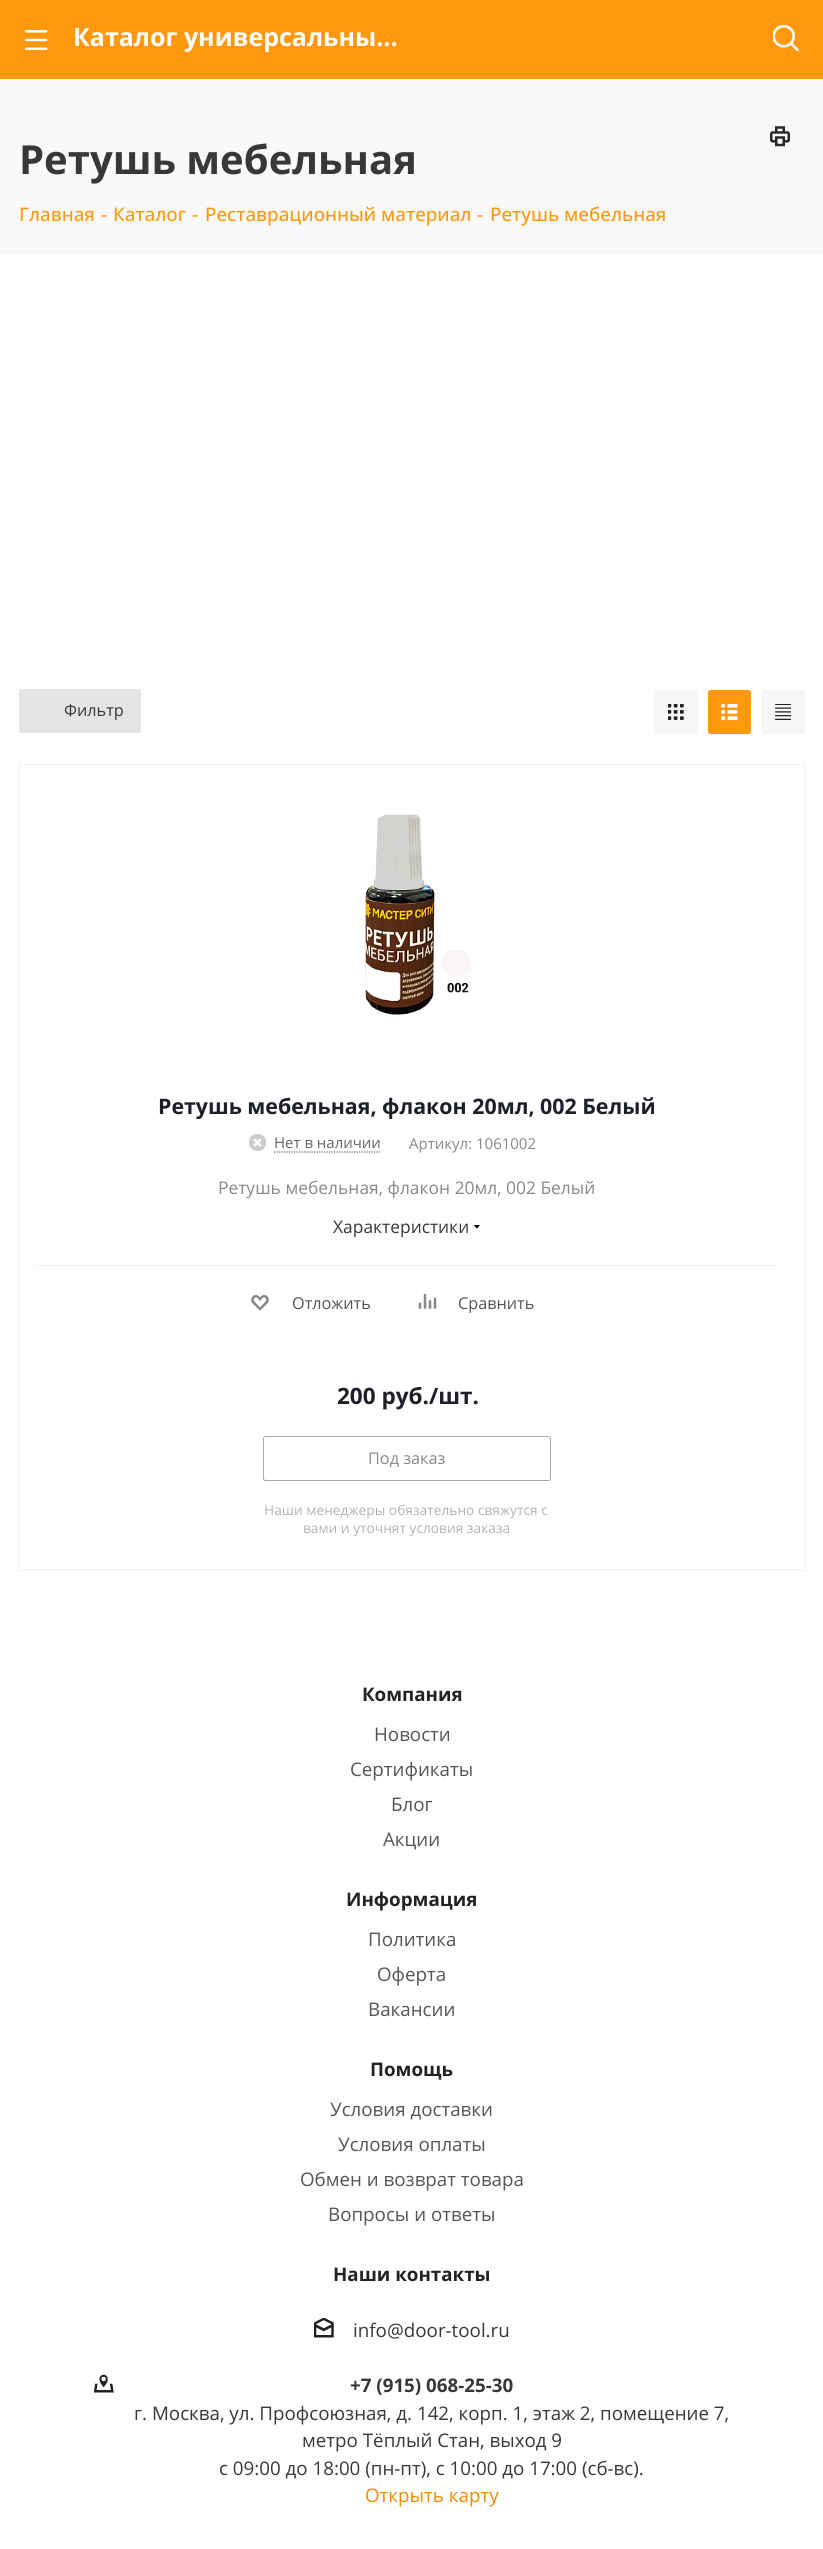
#include <cairo.h>
#include <math.h>
#include <stddef.h>


static void round_rect(cairo_t *cr, double x, double y, double w, double h, double r) {
    cairo_new_sub_path(cr);
    cairo_arc(cr, x + w - r, y + h - r, r, 0, M_PI / 2);
    cairo_arc(cr, x + r, y + h - r, r, M_PI / 2, M_PI);
    cairo_arc(cr, x + r, y + r, r, M_PI, 1.5 * M_PI);
    cairo_arc(cr, x + w - r, y + r, r, 1.5 * M_PI, 2 * M_PI);
    cairo_close_path(cr);
}

static void picture(cairo_t *cr, const char *path, double x, double y, double w, double h) {
    cairo_surface_t *image = cairo_image_surface_create_from_png(path);
    cairo_save(cr);
    cairo_set_source_surface(cr, image, x, y);
    cairo_rectangle(cr, x, y, w, h);
    cairo_fill(cr);
    cairo_restore(cr);
    cairo_surface_destroy(image);
}

int main(void) {
    cairo_surface_t *surface = cairo_image_surface_create(CAIRO_FORMAT_RGB24, 823, 2549);
    cairo_t *cr = cairo_create(surface);
    cairo_font_options_t *options = cairo_font_options_create();
    cairo_font_options_set_hint_metrics(options, CAIRO_HINT_METRICS_OFF);
    cairo_font_options_set_hint_style(options, CAIRO_HINT_STYLE_NONE);
    cairo_set_font_options(cr, options);
    cairo_set_miter_limit(cr, 4);
    cairo_set_source_rgb(cr, 1, 1, 1);
    cairo_paint(cr);
    cairo_set_source_rgb(cr, 1, 0.596, 0.051);
    cairo_rectangle(cr, 0, 0, 823, 79);
    cairo_fill(cr);
    picture(cr, "img1.png", 25, 30, 23, 20);
    cairo_select_font_face(cr, "Open Sans", CAIRO_FONT_SLANT_NORMAL, CAIRO_FONT_WEIGHT_BOLD);
    cairo_set_font_size(cr, 25);
    cairo_set_source_rgb(cr, 1, 1, 1);
    cairo_move_to(cr, 73, 46);
    cairo_show_text(cr, "Каталог универсальны…");
    picture(cr, "img2.png", 773, 25, 26, 26);
    cairo_set_source_rgb(cr, 0.976, 0.976, 0.976);
    cairo_rectangle(cr, 0, 79, 823, 175);
    cairo_fill(cr);
    picture(cr, "img3.png", 770, 126, 20, 21);
    cairo_set_font_size(cr, 40);
    cairo_set_source_rgb(cr, 0.22, 0.22, 0.22);
    cairo_move_to(cr, 19, 174);
    cairo_show_text(cr, "Ретушь мебельная");
    cairo_select_font_face(cr, "Open Sans Medium", CAIRO_FONT_SLANT_NORMAL, CAIRO_FONT_WEIGHT_NORMAL);
    cairo_set_font_size(cr, 18.75);
    cairo_set_source_rgb(cr, 1, 0.596, 0.051);
    cairo_move_to(cr, 19, 221);
    cairo_show_text(cr, "Главная");
    cairo_move_to(cr, 101, 221);
    cairo_show_text(cr, "-");
    cairo_move_to(cr, 113, 221);
    cairo_show_text(cr, "Каталог");
    cairo_move_to(cr, 192, 221);
    cairo_show_text(cr, "-");
    cairo_move_to(cr, 205, 221);
    cairo_show_text(cr, "Реставрационный материал");
    cairo_move_to(cr, 477, 221);
    cairo_show_text(cr, "-");
    cairo_move_to(cr, 490, 221);
    cairo_show_text(cr, "Ретушь мебельная");
    cairo_set_source_rgb(cr, 0.898, 0.898, 0.898);
    round_rect(cr, 19, 689, 122, 44, 2.5);
    cairo_fill(cr);
    cairo_select_font_face(cr, "Open Sans", CAIRO_FONT_SLANT_NORMAL, CAIRO_FONT_WEIGHT_NORMAL);
    cairo_set_font_size(cr, 16.25);
    cairo_set_source_rgb(cr, 0.22, 0.22, 0.22);
    cairo_move_to(cr, 64, 716);
    cairo_show_text(cr, "Фильтр");
    cairo_set_source_rgb(cr, 0.961, 0.961, 0.961);
    round_rect(cr, 654, 690, 44, 44, 2.5);
    cairo_fill(cr);
    picture(cr, "img4.png", 668, 704, 16, 16);
    cairo_set_source_rgb(cr, 1, 0.596, 0.051);
    round_rect(cr, 708, 690, 43, 44, 2.5);
    cairo_fill(cr);
    picture(cr, "img5.png", 721, 704, 17, 16);
    cairo_set_source_rgb(cr, 0.961, 0.961, 0.961);
    round_rect(cr, 761, 690, 44, 44, 2.5);
    cairo_fill(cr);
    picture(cr, "img6.png", 775, 704, 16, 16);
    cairo_rectangle(cr, 19.5, 764.5, 785, 806);
    cairo_set_source_rgb(cr, 0.949, 0.949, 0.949);
    cairo_set_line_width(cr, 1);
    cairo_stroke(cr);
    picture(cr, "img7.png", 365, 814, 106, 201);
    cairo_save(cr);
    cairo_rectangle(cr, 35, 1094, 744, 25);
    cairo_clip(cr);
    cairo_select_font_face(cr, "Open Sans", CAIRO_FONT_SLANT_NORMAL, CAIRO_FONT_WEIGHT_BOLD);
    cairo_set_font_size(cr, 21.35);
    cairo_set_source_rgb(cr, 0.114, 0.125, 0.161);
    cairo_move_to(cr, 158, 1114);
    cairo_show_text(cr, "Ретушь мебельная, флакон 20мл, 002 Белый");
    cairo_restore(cr);
    picture(cr, "img8.png", 249, 1134, 17, 17);
    cairo_new_path(cr);
    cairo_move_to(cr, 274, 1152);
    cairo_line_to(cr, 380, 1152);
    cairo_set_source_rgb(cr, 0.4, 0.4, 0.4);
    cairo_set_line_width(cr, 1.2);
    cairo_set_dash(cr, (double[]){1.25, 1.25}, 2, 0);
    cairo_stroke(cr);
    cairo_set_font_size(cr, 15);
    cairo_move_to(cr, 274, 1148);
    cairo_show_text(cr, "Нет в наличии");
    cairo_set_source_rgb(cr, 0.533, 0.533, 0.533);
    cairo_move_to(cr, 409, 1149);
    cairo_show_text(cr, "Артикул: 1061002");
    cairo_set_font_size(cr, 17.4);
    cairo_move_to(cr, 218, 1194);
    cairo_show_text(cr, "Ретушь мебельная, флакон 20мл, 002 Белый");
    cairo_set_source_rgb(cr, 0.22, 0.22, 0.22);
    cairo_move_to(cr, 333, 1233);
    cairo_show_text(cr, "Характеристики");
    picture(cr, "img9.png", 473, 1225, 7, 4);
    cairo_set_source_rgb(cr, 0.949, 0.949, 0.949);
    cairo_rectangle(cr, 35, 1265, 744, 1);
    cairo_fill(cr);
    picture(cr, "img10.png", 251, 1295, 18, 16);
    cairo_set_font_size(cr, 16.25);
    cairo_set_source_rgb(cr, 0.333, 0.333, 0.333);
    cairo_move_to(cr, 292, 1309);
    cairo_show_text(cr, "Отложить");
    picture(cr, "img11.png", 418, 1293, 19, 16);
    cairo_move_to(cr, 458, 1309);
    cairo_show_text(cr, "Сравнить");
    cairo_select_font_face(cr, "Open Sans", CAIRO_FONT_SLANT_NORMAL, CAIRO_FONT_WEIGHT_BOLD);
    cairo_set_font_size(cr, 22.5);
    cairo_set_source_rgb(cr, 0.114, 0.125, 0.161);
    cairo_move_to(cr, 337, 1404);
    cairo_show_text(cr, "200 руб./шт.");
    round_rect(cr, 263.5, 1436.5, 287, 44, 2);
    cairo_set_source_rgb(cr, 0.667, 0.667, 0.667);
    cairo_set_line_width(cr, 1);
    cairo_set_dash(cr, NULL, 0, 0);
    cairo_stroke(cr);
    cairo_select_font_face(cr, "Open Sans", CAIRO_FONT_SLANT_NORMAL, CAIRO_FONT_WEIGHT_NORMAL);
    cairo_set_font_size(cr, 16.25);
    cairo_set_source_rgb(cr, 0.533, 0.533, 0.533);
    cairo_move_to(cr, 368, 1464);
    cairo_show_text(cr, "Под заказ");
    cairo_set_font_size(cr, 13.75);
    cairo_set_source_rgb(cr, 0.702, 0.702, 0.702);
    cairo_move_to(cr, 264, 1515);
    cairo_show_text(cr, "Наши менеджеры обязательно свяжутся с");
    cairo_move_to(cr, 303, 1533);
    cairo_show_text(cr, "вами и уточнят условия заказа");
    cairo_select_font_face(cr, "Open Sans", CAIRO_FONT_SLANT_NORMAL, CAIRO_FONT_WEIGHT_BOLD);
    cairo_set_font_size(cr, 18.75);
    cairo_set_source_rgb(cr, 0.133, 0.133, 0.133);
    cairo_move_to(cr, 362, 1701);
    cairo_show_text(cr, "Компания");
    cairo_select_font_face(cr, "Open Sans", CAIRO_FONT_SLANT_NORMAL, CAIRO_FONT_WEIGHT_NORMAL);
    cairo_set_source_rgb(cr, 0.333, 0.333, 0.333);
    cairo_move_to(cr, 374, 1741);
    cairo_show_text(cr, "Новости");
    cairo_move_to(cr, 350, 1776);
    cairo_show_text(cr, "Сертификаты");
    cairo_move_to(cr, 391, 1811);
    cairo_show_text(cr, "Блог");
    cairo_move_to(cr, 383, 1846);
    cairo_show_text(cr, "Акции");
    cairo_select_font_face(cr, "Open Sans", CAIRO_FONT_SLANT_NORMAL, CAIRO_FONT_WEIGHT_BOLD);
    cairo_set_source_rgb(cr, 0.133, 0.133, 0.133);
    cairo_move_to(cr, 346, 1906);
    cairo_show_text(cr, "Информация");
    cairo_select_font_face(cr, "Open Sans", CAIRO_FONT_SLANT_NORMAL, CAIRO_FONT_WEIGHT_NORMAL);
    cairo_set_source_rgb(cr, 0.333, 0.333, 0.333);
    cairo_move_to(cr, 368, 1946);
    cairo_show_text(cr, "Политика");
    cairo_move_to(cr, 377, 1981);
    cairo_show_text(cr, "Оферта");
    cairo_move_to(cr, 368, 2016);
    cairo_show_text(cr, "Вакансии");
    cairo_select_font_face(cr, "Open Sans", CAIRO_FONT_SLANT_NORMAL, CAIRO_FONT_WEIGHT_BOLD);
    cairo_set_source_rgb(cr, 0.133, 0.133, 0.133);
    cairo_move_to(cr, 370, 2076);
    cairo_show_text(cr, "Помощь");
    cairo_select_font_face(cr, "Open Sans", CAIRO_FONT_SLANT_NORMAL, CAIRO_FONT_WEIGHT_NORMAL);
    cairo_set_source_rgb(cr, 0.333, 0.333, 0.333);
    cairo_move_to(cr, 330, 2116);
    cairo_show_text(cr, "Условия доставки");
    cairo_move_to(cr, 338, 2151);
    cairo_show_text(cr, "Условия оплаты");
    cairo_move_to(cr, 300, 2186);
    cairo_show_text(cr, "Обмен и возврат товара");
    cairo_move_to(cr, 328, 2221);
    cairo_show_text(cr, "Вопросы и ответы");
    cairo_select_font_face(cr, "Open Sans", CAIRO_FONT_SLANT_NORMAL, CAIRO_FONT_WEIGHT_BOLD);
    cairo_set_source_rgb(cr, 0.133, 0.133, 0.133);
    cairo_move_to(cr, 333, 2281);
    cairo_show_text(cr, "Наши контакты");
    picture(cr, "img12.png", 314, 2318, 20, 20);
    cairo_select_font_face(cr, "Open Sans", CAIRO_FONT_SLANT_NORMAL, CAIRO_FONT_WEIGHT_NORMAL);
    cairo_set_source_rgb(cr, 0.22, 0.22, 0.22);
    cairo_move_to(cr, 353, 2337);
    cairo_show_text(cr, "info@door-tool.ru");
    picture(cr, "img13.png", 94, 2374, 20, 19);
    cairo_select_font_face(cr, "Open Sans", CAIRO_FONT_SLANT_NORMAL, CAIRO_FONT_WEIGHT_BOLD);
    cairo_move_to(cr, 350, 2392);
    cairo_show_text(cr, "+7 (915) 068-25-30");
    cairo_select_font_face(cr, "Open Sans", CAIRO_FONT_SLANT_NORMAL, CAIRO_FONT_WEIGHT_NORMAL);
    cairo_move_to(cr, 134, 2420);
    cairo_show_text(cr, "г. Москва, ул. Профсоюзная, д. 142, корп. 1, этаж 2, помещение 7,");
    cairo_move_to(cr, 302, 2447);
    cairo_show_text(cr, "метро Тёплый Стан, выход 9");
    cairo_move_to(cr, 219, 2475);
    cairo_show_text(cr, "с 09:00 до 18:00 (пн-пт), с 10:00 до 17:00 (сб-вс).");
    cairo_set_source_rgb(cr, 0.953, 0.545, 0);
    cairo_move_to(cr, 365, 2502);
    cairo_show_text(cr, "Открыть карту");
    cairo_surface_write_to_png(surface, "page.png");
    cairo_font_options_destroy(options);
    cairo_destroy(cr);
    cairo_surface_destroy(surface);
    return 0;
}
